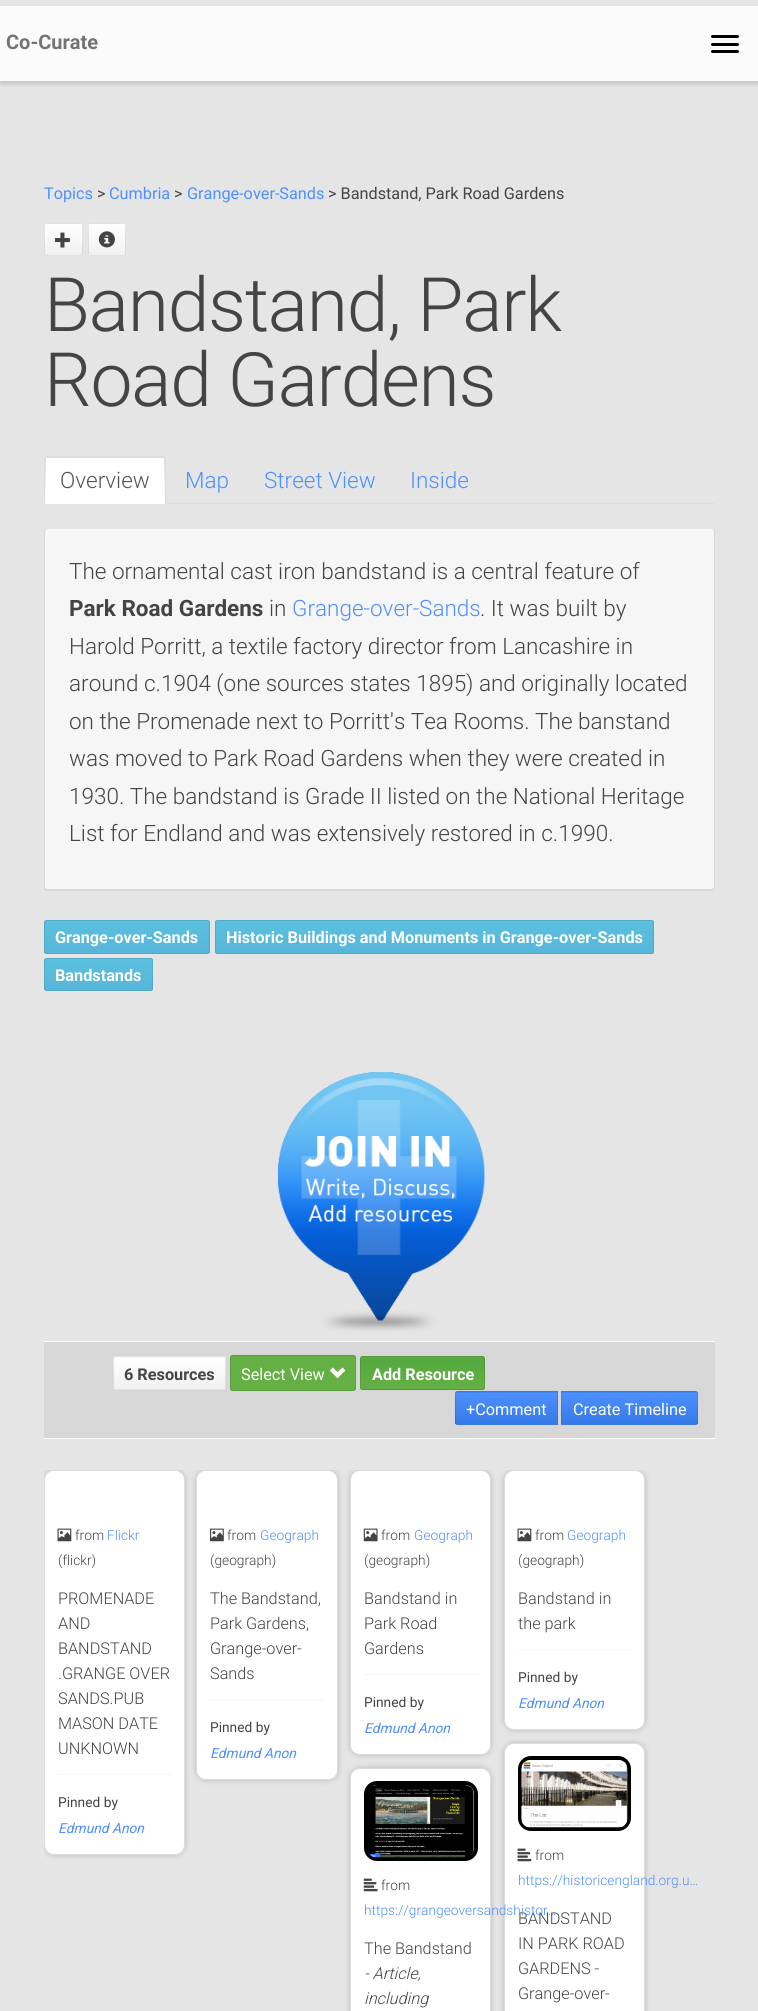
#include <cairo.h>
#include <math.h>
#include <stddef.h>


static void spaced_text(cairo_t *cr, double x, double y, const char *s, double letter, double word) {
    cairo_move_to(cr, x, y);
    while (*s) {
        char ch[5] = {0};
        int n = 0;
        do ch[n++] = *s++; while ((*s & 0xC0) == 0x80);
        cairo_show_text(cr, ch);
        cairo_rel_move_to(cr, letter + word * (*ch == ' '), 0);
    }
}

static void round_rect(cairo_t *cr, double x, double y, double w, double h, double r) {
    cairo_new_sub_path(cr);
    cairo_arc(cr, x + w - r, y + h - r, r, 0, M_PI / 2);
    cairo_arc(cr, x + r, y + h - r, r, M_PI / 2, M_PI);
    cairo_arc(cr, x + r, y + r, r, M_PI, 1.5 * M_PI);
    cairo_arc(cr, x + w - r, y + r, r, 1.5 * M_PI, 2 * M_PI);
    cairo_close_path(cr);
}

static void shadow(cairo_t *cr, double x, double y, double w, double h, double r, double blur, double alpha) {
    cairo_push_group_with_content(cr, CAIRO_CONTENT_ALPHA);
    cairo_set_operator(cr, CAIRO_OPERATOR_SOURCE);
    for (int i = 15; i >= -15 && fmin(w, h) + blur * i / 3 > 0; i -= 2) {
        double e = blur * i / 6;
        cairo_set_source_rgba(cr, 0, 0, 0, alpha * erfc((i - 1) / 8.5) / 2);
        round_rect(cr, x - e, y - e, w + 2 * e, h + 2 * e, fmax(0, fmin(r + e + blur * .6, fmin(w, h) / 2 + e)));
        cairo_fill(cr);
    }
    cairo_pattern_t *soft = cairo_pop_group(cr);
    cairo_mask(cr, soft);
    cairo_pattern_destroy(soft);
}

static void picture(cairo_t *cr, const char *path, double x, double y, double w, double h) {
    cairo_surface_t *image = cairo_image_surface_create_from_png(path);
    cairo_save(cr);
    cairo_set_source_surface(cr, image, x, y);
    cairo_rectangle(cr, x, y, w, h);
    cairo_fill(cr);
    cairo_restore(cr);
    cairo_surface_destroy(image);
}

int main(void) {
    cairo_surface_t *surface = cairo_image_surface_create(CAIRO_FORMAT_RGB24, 758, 2011);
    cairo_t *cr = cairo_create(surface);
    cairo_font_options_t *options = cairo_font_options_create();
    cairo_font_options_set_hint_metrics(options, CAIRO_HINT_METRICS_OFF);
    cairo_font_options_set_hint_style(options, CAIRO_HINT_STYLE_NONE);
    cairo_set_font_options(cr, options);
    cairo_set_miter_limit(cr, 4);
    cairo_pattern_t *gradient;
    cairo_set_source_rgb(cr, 0.898, 0.898, 0.898);
    cairo_paint(cr);
    cairo_set_source_rgb(cr, 0, 0, 0);
    shadow(cr, 0, 9, 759, 75, 0, 2.5, 0.15);
    cairo_set_source_rgb(cr, 0.984, 0.984, 0.984);
    cairo_rectangle(cr, 0, 6, 758, 75);
    cairo_fill(cr);
    cairo_select_font_face(cr, "Roboto", CAIRO_FONT_SLANT_NORMAL, CAIRO_FONT_WEIGHT_BOLD);
    cairo_set_font_size(cr, 20);
    cairo_set_source_rgb(cr, 0.451, 0.451, 0.451);
    cairo_move_to(cr, 6, 49);
    cairo_show_text(cr, "Co-Curate");
    cairo_set_source_rgb(cr, 0, 0, 0);
    round_rect(cr, 711, 35, 28, 3, 1.5);
    cairo_fill(cr);
    round_rect(cr, 711, 43, 28, 3, 1.5);
    cairo_fill(cr);
    round_rect(cr, 711, 50, 28, 3, 1.5);
    cairo_fill(cr);
    cairo_select_font_face(cr, "Roboto", CAIRO_FONT_SLANT_NORMAL, CAIRO_FONT_WEIGHT_NORMAL);
    cairo_set_font_size(cr, 16.25);
    cairo_set_source_rgb(cr, 0.302, 0.565, 0.996);
    cairo_move_to(cr, 44, 199);
    cairo_show_text(cr, "Topics");
    cairo_set_source_rgb(cr, 0.267, 0.267, 0.267);
    cairo_move_to(cr, 97, 199);
    cairo_show_text(cr, ">");
    cairo_set_source_rgb(cr, 0.302, 0.565, 0.996);
    cairo_move_to(cr, 109, 199);
    cairo_show_text(cr, "Cumbria");
    cairo_set_source_rgb(cr, 0.267, 0.267, 0.267);
    cairo_move_to(cr, 174, 199);
    cairo_show_text(cr, ">");
    cairo_set_source_rgb(cr, 0.302, 0.565, 0.996);
    cairo_move_to(cr, 187, 199);
    cairo_show_text(cr, "Grange-over-Sands");
    cairo_set_source_rgb(cr, 0.267, 0.267, 0.267);
    cairo_move_to(cr, 328, 199);
    cairo_show_text(cr, "> Bandstand, Park Road Gardens");
    cairo_set_source_rgb(cr, 0.976, 0.976, 0.976);
    round_rect(cr, 44, 223, 39, 33, 2.5);
    cairo_fill(cr);
    cairo_save(cr);
    round_rect(cr, 44, 223, 39, 33, 2.5);
    cairo_clip(cr);
    gradient = cairo_pattern_create_linear(63, 224, 63, 255);
    cairo_pattern_add_color_stop_rgba(gradient, 0, 1, 1, 1, 1);
    cairo_pattern_add_color_stop_rgba(gradient, 1, 0.945, 0.945, 0.945, 1);
    cairo_set_source(cr, gradient);
    cairo_pattern_destroy(gradient);
    cairo_rectangle(cr, 44, 224, 39, 31);
    cairo_fill(cr);
    cairo_restore(cr);
    round_rect(cr, 44.5, 223.5, 38, 32, 2);
    cairo_set_source_rgba(cr, 0, 0, 0, 0.1);
    cairo_set_line_width(cr, 1);
    cairo_stroke(cr);
    picture(cr, "img1.png", 55, 232, 15, 16);
    cairo_set_source_rgb(cr, 0.976, 0.976, 0.976);
    round_rect(cr, 88, 223, 38, 33, 2.5);
    cairo_fill(cr);
    cairo_save(cr);
    round_rect(cr, 88, 223, 38, 33, 2.5);
    cairo_clip(cr);
    gradient = cairo_pattern_create_linear(107, 224, 107, 255);
    cairo_pattern_add_color_stop_rgba(gradient, 0, 1, 1, 1, 1);
    cairo_pattern_add_color_stop_rgba(gradient, 1, 0.945, 0.945, 0.945, 1);
    cairo_set_source(cr, gradient);
    cairo_pattern_destroy(gradient);
    cairo_rectangle(cr, 88, 224, 38, 31);
    cairo_fill(cr);
    cairo_restore(cr);
    round_rect(cr, 88.5, 223.5, 37, 32, 2);
    cairo_set_source_rgba(cr, 0, 0, 0, 0.1);
    cairo_stroke(cr);
    picture(cr, "img2.png", 98, 231, 17, 17);
    cairo_select_font_face(cr, "Roboto Light", CAIRO_FONT_SLANT_NORMAL, CAIRO_FONT_WEIGHT_NORMAL);
    cairo_set_font_size(cr, 75);
    cairo_set_source_rgb(cr, 0.267, 0.267, 0.267);
    spaced_text(cr, 44, 331, "Bandstand, Park", -1.25, 0);
    spaced_text(cr, 44, 406, "Road Gardens", -1.25, 0);
    cairo_set_source_rgb(cr, 0.867, 0.867, 0.867);
    cairo_rectangle(cr, 166, 503, 549, 1);
    cairo_fill(cr);
    cairo_set_source_rgb(cr, 1, 1, 1);
    cairo_new_path(cr);
    cairo_move_to(cr, 46.5, 456);
    cairo_line_to(cr, 163.5, 456);
    cairo_curve_to(cr, 165, 456, 166, 457, 166, 458.5);
    cairo_line_to(cr, 166, 504);
    cairo_line_to(cr, 44, 504);
    cairo_line_to(cr, 44, 458.5);
    cairo_curve_to(cr, 44, 457, 45, 456, 46.5, 456);
    cairo_close_path(cr);
    cairo_fill(cr);
    cairo_set_source_rgb(cr, 0.867, 0.867, 0.867);
    cairo_new_path(cr);
    cairo_move_to(cr, 46, 458);
    cairo_line_to(cr, 44, 457);
    cairo_line_to(cr, 45, 456);
    cairo_line_to(cr, 165, 456);
    cairo_line_to(cr, 166, 457);
    cairo_line_to(cr, 164, 458);
    cairo_close_path(cr);
    cairo_fill(cr);
    cairo_new_path(cr);
    cairo_move_to(cr, 166, 457);
    cairo_line_to(cr, 166, 459);
    cairo_line_to(cr, 166, 504);
    cairo_line_to(cr, 164, 502);
    cairo_line_to(cr, 165, 502);
    cairo_line_to(cr, 164, 458);
    cairo_close_path(cr);
    cairo_fill(cr);
    cairo_new_path(cr);
    cairo_move_to(cr, 44, 504);
    cairo_line_to(cr, 44, 459);
    cairo_line_to(cr, 44, 457);
    cairo_line_to(cr, 46, 458);
    cairo_line_to(cr, 45, 502);
    cairo_line_to(cr, 46, 502);
    cairo_close_path(cr);
    cairo_fill(cr);
    cairo_set_font_size(cr, 22.5);
    cairo_set_source_rgb(cr, 0.333, 0.333, 0.333);
    cairo_move_to(cr, 60, 488);
    cairo_show_text(cr, "Overview");
    cairo_set_source_rgb(cr, 0.302, 0.565, 0.996);
    cairo_move_to(cr, 185, 488);
    cairo_show_text(cr, "Map");
    cairo_move_to(cr, 264, 488);
    cairo_show_text(cr, "Street View");
    cairo_move_to(cr, 410, 488);
    cairo_show_text(cr, "Inside");
    cairo_set_source_rgb(cr, 0.961, 0.961, 0.961);
    cairo_new_path(cr);
    cairo_move_to(cr, 48, 529);
    cairo_line_to(cr, 711, 529);
    cairo_curve_to(cr, 713, 529, 714, 530, 714, 532);
    cairo_line_to(cr, 714, 888);
    cairo_curve_to(cr, 714, 888, 713, 889, 711, 889);
    cairo_line_to(cr, 48, 889);
    cairo_curve_to(cr, 46, 889, 45, 888, 45, 888);
    cairo_line_to(cr, 45, 532);
    cairo_curve_to(cr, 45, 530, 46, 529, 48, 529);
    cairo_close_path(cr);
    cairo_fill(cr);
    cairo_set_source_rgb(cr, 0.847, 0.847, 0.847);
    cairo_set_fill_rule(cr, CAIRO_FILL_RULE_EVEN_ODD);
    cairo_new_path(cr);
    cairo_move_to(cr, 48, 529);
    cairo_line_to(cr, 711, 529);
    cairo_curve_to(cr, 713, 529, 715, 530, 715, 532);
    cairo_line_to(cr, 715, 888);
    cairo_curve_to(cr, 715, 890, 713, 891, 711, 891);
    cairo_line_to(cr, 48, 891);
    cairo_curve_to(cr, 45, 891, 44, 890, 44, 888);
    cairo_line_to(cr, 44, 532);
    cairo_curve_to(cr, 44, 530, 45, 529, 48, 529);
    cairo_close_path(cr);
    cairo_move_to(cr, 48, 529);
    cairo_line_to(cr, 711, 529);
    cairo_curve_to(cr, 713, 529, 714, 530, 714, 532);
    cairo_line_to(cr, 714, 888);
    cairo_curve_to(cr, 714, 888, 713, 889, 711, 889);
    cairo_line_to(cr, 48, 889);
    cairo_curve_to(cr, 46, 889, 45, 888, 45, 888);
    cairo_line_to(cr, 45, 532);
    cairo_curve_to(cr, 45, 530, 46, 529, 48, 529);
    cairo_close_path(cr);
    cairo_fill(cr);
    cairo_set_source_rgb(cr, 0.267, 0.267, 0.267);
    cairo_move_to(cr, 69, 579);
    cairo_show_text(cr, "The ornamental cast iron bandstand is a central feature of");
    cairo_select_font_face(cr, "Roboto", CAIRO_FONT_SLANT_NORMAL, CAIRO_FONT_WEIGHT_BOLD);
    cairo_move_to(cr, 69, 616);
    cairo_show_text(cr, "Park Road Gardens");
    cairo_select_font_face(cr, "Roboto Light", CAIRO_FONT_SLANT_NORMAL, CAIRO_FONT_WEIGHT_NORMAL);
    cairo_move_to(cr, 269, 616);
    cairo_show_text(cr, "in");
    cairo_set_source_rgb(cr, 0.302, 0.565, 0.996);
    cairo_move_to(cr, 292, 616);
    cairo_show_text(cr, "Grange-over-Sands");
    cairo_set_source_rgb(cr, 0.267, 0.267, 0.267);
    cairo_move_to(cr, 480, 616);
    cairo_show_text(cr, ". It was built by");
    cairo_move_to(cr, 69, 654);
    cairo_show_text(cr, "Harold Porritt, a textile factory director from Lancashire in");
    cairo_move_to(cr, 69, 691);
    cairo_show_text(cr, "around c.1904 (one sources states 1895) and originally located");
    cairo_move_to(cr, 69, 729);
    cairo_show_text(cr, "on the Promenade next to Porritt's Tea Rooms. The banstand");
    cairo_move_to(cr, 69, 766);
    cairo_show_text(cr, "was moved to Park Road Gardens when they were created in");
    cairo_move_to(cr, 69, 804);
    cairo_show_text(cr, "1930. The bandstand is Grade II listed on the National Heritage");
    cairo_move_to(cr, 69, 841);
    cairo_show_text(cr, "List for Endland and was extensively restored in c.1990.");
    cairo_set_source_rgb(cr, 0.349, 0.737, 0.867);
    round_rect(cr, 44, 920, 166, 34, 2.5);
    cairo_fill(cr);
    cairo_save(cr);
    cairo_set_fill_rule(cr, CAIRO_FILL_RULE_WINDING);
    round_rect(cr, 44, 920, 166, 34, 2.5);
    cairo_clip(cr);
    gradient = cairo_pattern_create_linear(127, 921, 127, 953);
    cairo_pattern_add_color_stop_rgba(gradient, 0, 0.357, 0.753, 0.871, 1);
    cairo_pattern_add_color_stop_rgba(gradient, 1, 0.341, 0.714, 0.859, 1);
    cairo_set_source(cr, gradient);
    cairo_pattern_destroy(gradient);
    cairo_rectangle(cr, 44, 921, 166, 32);
    cairo_fill(cr);
    cairo_restore(cr);
    round_rect(cr, 44.5, 920.5, 165, 33, 2);
    cairo_set_source_rgba(cr, 0, 0, 0, 0.1);
    cairo_stroke(cr);
    cairo_select_font_face(cr, "Roboto", CAIRO_FONT_SLANT_NORMAL, CAIRO_FONT_WEIGHT_BOLD);
    cairo_set_font_size(cr, 16.25);
    cairo_set_source_rgb(cr, 1, 1, 1);
    cairo_move_to(cr, 55, 943);
    cairo_show_text(cr, "Grange-over-Sands");
    cairo_set_source_rgb(cr, 0.349, 0.737, 0.867);
    round_rect(cr, 215, 920, 439, 34, 2.5);
    cairo_fill(cr);
    cairo_save(cr);
    cairo_set_fill_rule(cr, CAIRO_FILL_RULE_WINDING);
    round_rect(cr, 215, 920, 439, 34, 2.5);
    cairo_clip(cr);
    gradient = cairo_pattern_create_linear(434, 921, 434, 953);
    cairo_pattern_add_color_stop_rgba(gradient, 0, 0.357, 0.753, 0.871, 1);
    cairo_pattern_add_color_stop_rgba(gradient, 1, 0.341, 0.714, 0.859, 1);
    cairo_set_source(cr, gradient);
    cairo_pattern_destroy(gradient);
    cairo_rectangle(cr, 215, 921, 439, 32);
    cairo_fill(cr);
    cairo_restore(cr);
    round_rect(cr, 215.5, 920.5, 438, 33, 2);
    cairo_set_source_rgba(cr, 0, 0, 0, 0.1);
    cairo_stroke(cr);
    cairo_set_source_rgb(cr, 1, 1, 1);
    cairo_move_to(cr, 226, 943);
    cairo_show_text(cr, "Historic Buildings and Monuments in Grange-over-Sands");
    cairo_set_source_rgb(cr, 0.349, 0.737, 0.867);
    round_rect(cr, 44, 958, 109, 33, 2.5);
    cairo_fill(cr);
    cairo_save(cr);
    cairo_set_fill_rule(cr, CAIRO_FILL_RULE_WINDING);
    round_rect(cr, 44, 958, 109, 33, 2.5);
    cairo_clip(cr);
    gradient = cairo_pattern_create_linear(98, 959, 98, 990);
    cairo_pattern_add_color_stop_rgba(gradient, 0, 0.357, 0.753, 0.871, 1);
    cairo_pattern_add_color_stop_rgba(gradient, 1, 0.341, 0.714, 0.859, 1);
    cairo_set_source(cr, gradient);
    cairo_pattern_destroy(gradient);
    cairo_rectangle(cr, 44, 959, 109, 31);
    cairo_fill(cr);
    cairo_restore(cr);
    round_rect(cr, 44.5, 958.5, 108, 32, 2);
    cairo_set_source_rgba(cr, 0, 0, 0, 0.1);
    cairo_stroke(cr);
    cairo_set_source_rgb(cr, 1, 1, 1);
    cairo_move_to(cr, 55, 981);
    cairo_show_text(cr, "Bandstands");
    picture(cr, "img3.png", 277, 1072, 208, 259);
    cairo_set_source_rgb(cr, 0.843, 0.843, 0.843);
    cairo_rectangle(cr, 44, 1342, 671, 96);
    cairo_fill(cr);
    cairo_set_source_rgb(cr, 1, 1, 1);
    cairo_rectangle(cr, 44, 1341, 671, 1);
    cairo_fill(cr);
    cairo_rectangle(cr, 44, 1438, 671, 1);
    cairo_fill(cr);
    cairo_set_source_rgb(cr, 0.976, 0.976, 0.976);
    round_rect(cr, 113, 1356, 113, 34, 2.5);
    cairo_fill(cr);
    gradient = cairo_pattern_create_linear(169, 1358, 169, 1389);
    cairo_pattern_add_color_stop_rgba(gradient, 0, 1, 1, 1, 1);
    cairo_pattern_add_color_stop_rgba(gradient, 1, 0.945, 0.945, 0.945, 1);
    cairo_set_source(cr, gradient);
    cairo_pattern_destroy(gradient);
    cairo_rectangle(cr, 113, 1358, 113, 31);
    cairo_fill(cr);
    round_rect(cr, 113.5, 1356.5, 112, 33, 2);
    cairo_set_source_rgba(cr, 0, 0, 0, 0.1);
    cairo_stroke(cr);
    cairo_set_source_rgb(cr, 0.267, 0.267, 0.267);
    cairo_move_to(cr, 124, 1380);
    cairo_show_text(cr, "6 Resources");
    cairo_set_source_rgb(cr, 0.396, 0.69, 0.271);
    round_rect(cr, 230, 1355, 126, 36, 2.5);
    cairo_fill(cr);
    round_rect(cr, 230.5, 1355.5, 125, 35, 2);
    cairo_set_source_rgba(cr, 0, 0, 0, 0.1);
    cairo_stroke(cr);
    cairo_select_font_face(cr, "Roboto", CAIRO_FONT_SLANT_NORMAL, CAIRO_FONT_WEIGHT_NORMAL);
    cairo_set_source_rgb(cr, 1, 1, 1);
    cairo_move_to(cr, 241, 1380);
    cairo_show_text(cr, "Select View");
    picture(cr, "img4.png", 329, 1367, 17, 12);
    cairo_set_source_rgb(cr, 0.353, 0.675, 0.255);
    round_rect(cr, 360, 1356, 125, 34, 2.5);
    cairo_fill(cr);
    gradient = cairo_pattern_create_linear(423, 1358, 423, 1389);
    cairo_pattern_add_color_stop_rgba(gradient, 0, 0.325, 0.663, 0.247, 1);
    cairo_pattern_add_color_stop_rgba(gradient, 1, 0.396, 0.69, 0.271, 1);
    cairo_set_source(cr, gradient);
    cairo_pattern_destroy(gradient);
    cairo_rectangle(cr, 360, 1358, 125, 31);
    cairo_fill(cr);
    round_rect(cr, 360.5, 1356.5, 124, 33, 2);
    cairo_set_source_rgba(cr, 0, 0, 0, 0.1);
    cairo_stroke(cr);
    cairo_select_font_face(cr, "Roboto", CAIRO_FONT_SLANT_NORMAL, CAIRO_FONT_WEIGHT_BOLD);
    cairo_set_source_rgb(cr, 1, 1, 1);
    cairo_move_to(cr, 372, 1380);
    cairo_show_text(cr, "Add Resource");
    cairo_set_source_rgb(cr, 0.263, 0.529, 0.961);
    cairo_new_path(cr);
    cairo_move_to(cr, 457.5, 1391);
    cairo_line_to(cr, 558, 1391);
    cairo_line_to(cr, 558, 1425);
    cairo_line_to(cr, 457.5, 1425);
    cairo_curve_to(cr, 456, 1425, 455, 1424, 455, 1422.5);
    cairo_line_to(cr, 455, 1393.5);
    cairo_curve_to(cr, 455, 1392, 456, 1391, 457.5, 1391);
    cairo_close_path(cr);
    cairo_fill(cr);
    gradient = cairo_pattern_create_linear(506, 1393, 506, 1424);
    cairo_pattern_add_color_stop_rgba(gradient, 0, 0.302, 0.565, 0.996, 1);
    cairo_pattern_add_color_stop_rgba(gradient, 1, 0.208, 0.478, 0.91, 1);
    cairo_set_source(cr, gradient);
    cairo_pattern_destroy(gradient);
    cairo_rectangle(cr, 455, 1393, 103, 31);
    cairo_fill(cr);
    cairo_new_path(cr);
    cairo_move_to(cr, 457.5, 1391.5);
    cairo_line_to(cr, 557.5, 1391.5);
    cairo_line_to(cr, 557.5, 1424.5);
    cairo_line_to(cr, 457.5, 1424.5);
    cairo_curve_to(cr, 456.5, 1424.5, 455.5, 1423.5, 455.5, 1422.5);
    cairo_line_to(cr, 455.5, 1393.5);
    cairo_curve_to(cr, 455.5, 1392.5, 456.5, 1391.5, 457.5, 1391.5);
    cairo_close_path(cr);
    cairo_set_source_rgba(cr, 0, 0, 0, 0.1);
    cairo_stroke(cr);
    cairo_select_font_face(cr, "Roboto", CAIRO_FONT_SLANT_NORMAL, CAIRO_FONT_WEIGHT_NORMAL);
    cairo_set_source_rgb(cr, 1, 1, 1);
    cairo_move_to(cr, 466, 1415);
    cairo_show_text(cr, "+Comment");
    cairo_set_source_rgb(cr, 0.263, 0.529, 0.961);
    cairo_new_path(cr);
    cairo_move_to(cr, 561, 1391);
    cairo_line_to(cr, 695.5, 1391);
    cairo_curve_to(cr, 697, 1391, 698, 1392, 698, 1393.5);
    cairo_line_to(cr, 698, 1422.5);
    cairo_curve_to(cr, 698, 1424, 697, 1425, 695.5, 1425);
    cairo_line_to(cr, 561, 1425);
    cairo_close_path(cr);
    cairo_fill(cr);
    gradient = cairo_pattern_create_linear(629, 1393, 629, 1424);
    cairo_pattern_add_color_stop_rgba(gradient, 0, 0.302, 0.565, 0.996, 1);
    cairo_pattern_add_color_stop_rgba(gradient, 1, 0.208, 0.478, 0.91, 1);
    cairo_set_source(cr, gradient);
    cairo_pattern_destroy(gradient);
    cairo_rectangle(cr, 561, 1393, 137, 31);
    cairo_fill(cr);
    cairo_new_path(cr);
    cairo_move_to(cr, 561.5, 1391.5);
    cairo_line_to(cr, 695.5, 1391.5);
    cairo_curve_to(cr, 696.5, 1391.5, 697.5, 1392.5, 697.5, 1393.5);
    cairo_line_to(cr, 697.5, 1422.5);
    cairo_curve_to(cr, 697.5, 1423.5, 696.5, 1424.5, 695.5, 1424.5);
    cairo_line_to(cr, 561.5, 1424.5);
    cairo_close_path(cr);
    cairo_set_source_rgba(cr, 0, 0, 0, 0.1);
    cairo_stroke(cr);
    cairo_set_source_rgb(cr, 1, 1, 1);
    cairo_move_to(cr, 573, 1415);
    cairo_show_text(cr, "Create Timeline");
    cairo_save(cr);
    cairo_set_fill_rule(cr, CAIRO_FILL_RULE_WINDING);
    cairo_rectangle(cr, 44, 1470, 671, 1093);
    cairo_clip(cr);
    cairo_set_source_rgb(cr, 0, 0, 0);
    shadow(cr, 44, 1470, 141, 385, 10, 3, 0.2);
    cairo_restore(cr);
    round_rect(cr, 44.5, 1470.5, 140, 384, 9.5);
    cairo_fill_preserve(cr);
    cairo_set_source_rgb(cr, 0.867, 0.867, 0.867);
    cairo_stroke(cr);
    picture(cr, "img5.png", 57, 1528, 15, 14);
    cairo_select_font_face(cr, "Roboto Light", CAIRO_FONT_SLANT_NORMAL, CAIRO_FONT_WEIGHT_NORMAL);
    cairo_set_font_size(cr, 13.75);
    cairo_set_source_rgb(cr, 0.267, 0.267, 0.267);
    cairo_move_to(cr, 75, 1540);
    cairo_show_text(cr, "from");
    cairo_set_source_rgb(cr, 0.302, 0.565, 0.996);
    cairo_move_to(cr, 107, 1540);
    cairo_show_text(cr, "Flickr");
    cairo_set_source_rgb(cr, 0.267, 0.267, 0.267);
    cairo_move_to(cr, 58, 1565);
    cairo_show_text(cr, "(flickr)");
    cairo_set_font_size(cr, 16.25);
    cairo_move_to(cr, 58, 1604);
    cairo_show_text(cr, "PROMENADE");
    cairo_move_to(cr, 58, 1629);
    cairo_show_text(cr, "AND");
    cairo_move_to(cr, 58, 1654);
    cairo_show_text(cr, "BANDSTAND");
    cairo_move_to(cr, 58, 1679);
    cairo_show_text(cr, ".GRANGE OVER");
    cairo_move_to(cr, 58, 1704);
    cairo_show_text(cr, "SANDS.PUB");
    cairo_move_to(cr, 58, 1729);
    cairo_show_text(cr, "MASON DATE");
    cairo_move_to(cr, 58, 1754);
    cairo_show_text(cr, "UNKNOWN");
    cairo_set_source_rgb(cr, 0.961, 0.961, 0.961);
    cairo_rectangle(cr, 58, 1774, 113, 1);
    cairo_fill(cr);
    cairo_select_font_face(cr, "Roboto", CAIRO_FONT_SLANT_NORMAL, CAIRO_FONT_WEIGHT_NORMAL);
    cairo_set_font_size(cr, 13.75);
    cairo_set_source_rgb(cr, 0.267, 0.267, 0.267);
    cairo_move_to(cr, 58, 1807);
    cairo_show_text(cr, "Pinned by");
    cairo_select_font_face(cr, "Roboto", CAIRO_FONT_SLANT_ITALIC, CAIRO_FONT_WEIGHT_NORMAL);
    cairo_set_source_rgb(cr, 0.302, 0.565, 0.996);
    cairo_move_to(cr, 58, 1833);
    cairo_show_text(cr, "Edmund Anon");
    cairo_save(cr);
    cairo_set_fill_rule(cr, CAIRO_FILL_RULE_WINDING);
    cairo_rectangle(cr, 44, 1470, 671, 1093);
    cairo_clip(cr);
    cairo_set_source_rgb(cr, 0, 0, 0);
    shadow(cr, 196, 1470, 142, 310, 10, 3, 0.2);
    cairo_restore(cr);
    cairo_set_source_rgb(cr, 1, 1, 1);
    round_rect(cr, 196.5, 1470.5, 141, 309, 9.5);
    cairo_fill_preserve(cr);
    cairo_set_source_rgb(cr, 0.867, 0.867, 0.867);
    cairo_stroke(cr);
    picture(cr, "img6.png", 210, 1528, 14, 14);
    cairo_select_font_face(cr, "Roboto Light", CAIRO_FONT_SLANT_NORMAL, CAIRO_FONT_WEIGHT_NORMAL);
    cairo_set_source_rgb(cr, 0.267, 0.267, 0.267);
    cairo_move_to(cr, 227, 1540);
    cairo_show_text(cr, "from");
    cairo_set_source_rgb(cr, 0.302, 0.565, 0.996);
    cairo_move_to(cr, 260, 1540);
    cairo_show_text(cr, "Geograph");
    cairo_set_source_rgb(cr, 0.267, 0.267, 0.267);
    cairo_move_to(cr, 210, 1565);
    cairo_show_text(cr, "(geograph)");
    cairo_set_font_size(cr, 16.25);
    cairo_move_to(cr, 210, 1604);
    cairo_show_text(cr, "The Bandstand,");
    cairo_move_to(cr, 210, 1629);
    cairo_show_text(cr, "Park Gardens,");
    cairo_move_to(cr, 210, 1654);
    cairo_show_text(cr, "Grange-over-");
    cairo_move_to(cr, 210, 1679);
    cairo_show_text(cr, "Sands");
    cairo_set_source_rgb(cr, 0.961, 0.961, 0.961);
    cairo_rectangle(cr, 210, 1699, 114, 1);
    cairo_fill(cr);
    cairo_select_font_face(cr, "Roboto", CAIRO_FONT_SLANT_NORMAL, CAIRO_FONT_WEIGHT_NORMAL);
    cairo_set_font_size(cr, 13.75);
    cairo_set_source_rgb(cr, 0.267, 0.267, 0.267);
    cairo_move_to(cr, 210, 1732);
    cairo_show_text(cr, "Pinned by");
    cairo_select_font_face(cr, "Roboto", CAIRO_FONT_SLANT_ITALIC, CAIRO_FONT_WEIGHT_NORMAL);
    cairo_set_source_rgb(cr, 0.302, 0.565, 0.996);
    cairo_move_to(cr, 210, 1758);
    cairo_show_text(cr, "Edmund Anon");
    cairo_save(cr);
    cairo_set_fill_rule(cr, CAIRO_FILL_RULE_WINDING);
    cairo_rectangle(cr, 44, 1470, 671, 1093);
    cairo_clip(cr);
    cairo_set_source_rgb(cr, 0, 0, 0);
    shadow(cr, 350, 1470, 141, 285, 10, 3, 0.2);
    cairo_restore(cr);
    cairo_set_source_rgb(cr, 1, 1, 1);
    round_rect(cr, 350.5, 1470.5, 140, 284, 9.5);
    cairo_fill_preserve(cr);
    cairo_set_source_rgb(cr, 0.867, 0.867, 0.867);
    cairo_stroke(cr);
    picture(cr, "img7.png", 363, 1528, 15, 14);
    cairo_select_font_face(cr, "Roboto Light", CAIRO_FONT_SLANT_NORMAL, CAIRO_FONT_WEIGHT_NORMAL);
    cairo_set_source_rgb(cr, 0.267, 0.267, 0.267);
    cairo_move_to(cr, 381, 1540);
    cairo_show_text(cr, "from");
    cairo_set_source_rgb(cr, 0.302, 0.565, 0.996);
    cairo_move_to(cr, 414, 1540);
    cairo_show_text(cr, "Geograph");
    cairo_set_source_rgb(cr, 0.267, 0.267, 0.267);
    cairo_move_to(cr, 364, 1565);
    cairo_show_text(cr, "(geograph)");
    cairo_set_font_size(cr, 16.25);
    cairo_move_to(cr, 364, 1604);
    cairo_show_text(cr, "Bandstand in");
    cairo_move_to(cr, 364, 1629);
    cairo_show_text(cr, "Park Road");
    cairo_move_to(cr, 364, 1654);
    cairo_show_text(cr, "Gardens");
    cairo_set_source_rgb(cr, 0.961, 0.961, 0.961);
    cairo_rectangle(cr, 364, 1674, 114, 1);
    cairo_fill(cr);
    cairo_select_font_face(cr, "Roboto", CAIRO_FONT_SLANT_NORMAL, CAIRO_FONT_WEIGHT_NORMAL);
    cairo_set_font_size(cr, 13.75);
    cairo_set_source_rgb(cr, 0.267, 0.267, 0.267);
    cairo_move_to(cr, 364, 1707);
    cairo_show_text(cr, "Pinned by");
    cairo_select_font_face(cr, "Roboto", CAIRO_FONT_SLANT_ITALIC, CAIRO_FONT_WEIGHT_NORMAL);
    cairo_set_source_rgb(cr, 0.302, 0.565, 0.996);
    cairo_move_to(cr, 364, 1733);
    cairo_show_text(cr, "Edmund Anon");
    cairo_save(cr);
    cairo_set_fill_rule(cr, CAIRO_FILL_RULE_WINDING);
    cairo_rectangle(cr, 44, 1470, 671, 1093);
    cairo_clip(cr);
    cairo_set_source_rgb(cr, 0, 0, 0);
    shadow(cr, 504, 1470, 141, 260, 10, 3, 0.2);
    cairo_restore(cr);
    cairo_set_source_rgb(cr, 1, 1, 1);
    round_rect(cr, 504.5, 1470.5, 140, 259, 9.5);
    cairo_fill_preserve(cr);
    cairo_set_source_rgb(cr, 0.867, 0.867, 0.867);
    cairo_stroke(cr);
    picture(cr, "img5.png", 517, 1528, 15, 14);
    cairo_select_font_face(cr, "Roboto Light", CAIRO_FONT_SLANT_NORMAL, CAIRO_FONT_WEIGHT_NORMAL);
    cairo_set_source_rgb(cr, 0.267, 0.267, 0.267);
    cairo_move_to(cr, 535, 1540);
    cairo_show_text(cr, "from");
    cairo_set_source_rgb(cr, 0.302, 0.565, 0.996);
    cairo_move_to(cr, 567, 1540);
    cairo_show_text(cr, "Geograph");
    cairo_set_source_rgb(cr, 0.267, 0.267, 0.267);
    cairo_move_to(cr, 518, 1565);
    cairo_show_text(cr, "(geograph)");
    cairo_set_font_size(cr, 16.25);
    cairo_move_to(cr, 518, 1604);
    cairo_show_text(cr, "Bandstand in");
    cairo_move_to(cr, 518, 1629);
    cairo_show_text(cr, "the park");
    cairo_set_source_rgb(cr, 0.961, 0.961, 0.961);
    cairo_rectangle(cr, 518, 1649, 113, 1);
    cairo_fill(cr);
    cairo_select_font_face(cr, "Roboto", CAIRO_FONT_SLANT_NORMAL, CAIRO_FONT_WEIGHT_NORMAL);
    cairo_set_font_size(cr, 13.75);
    cairo_set_source_rgb(cr, 0.267, 0.267, 0.267);
    cairo_move_to(cr, 518, 1682);
    cairo_show_text(cr, "Pinned by");
    cairo_select_font_face(cr, "Roboto", CAIRO_FONT_SLANT_ITALIC, CAIRO_FONT_WEIGHT_NORMAL);
    cairo_set_source_rgb(cr, 0.302, 0.565, 0.996);
    cairo_move_to(cr, 518, 1708);
    cairo_show_text(cr, "Edmund Anon");
    cairo_set_source_rgb(cr, 0, 0, 0);
    shadow(cr, 350, 1768, 141, 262, 10, 3, 0.2);
    cairo_set_source_rgb(cr, 1, 1, 1);
    round_rect(cr, 350.5, 1768.5, 140, 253, 9.5);
    cairo_fill_preserve(cr);
    cairo_set_source_rgb(cr, 0.867, 0.867, 0.867);
    cairo_stroke(cr);
    round_rect(cr, 366, 1783, 110, 76, 11);
    cairo_set_source_rgb(cr, 0, 0, 0);
    cairo_set_line_width(cr, 4);
    cairo_stroke(cr);
    picture(cr, "img8.png", 368, 1785, 106, 73);
    picture(cr, "img9.png", 363, 1878, 15, 14);
    cairo_select_font_face(cr, "Roboto Light", CAIRO_FONT_SLANT_NORMAL, CAIRO_FONT_WEIGHT_NORMAL);
    cairo_set_source_rgb(cr, 0.267, 0.267, 0.267);
    cairo_move_to(cr, 381, 1890);
    cairo_show_text(cr, "from");
    cairo_set_source_rgb(cr, 0, 0, 0);
    shadow(cr, 504, 1743, 141, 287, 10, 3, 0.2);
    cairo_set_source_rgb(cr, 1, 1, 1);
    round_rect(cr, 504.5, 1743.5, 140, 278, 9.5);
    cairo_fill_preserve(cr);
    cairo_set_source_rgb(cr, 0.867, 0.867, 0.867);
    cairo_set_line_width(cr, 1);
    cairo_stroke(cr);
    cairo_set_font_size(cr, 16.25);
    cairo_set_source_rgb(cr, 0.267, 0.267, 0.267);
    cairo_move_to(cr, 518, 1924);
    cairo_show_text(cr, "BANDSTAND");
    cairo_set_font_size(cr, 13.75);
    cairo_set_source_rgb(cr, 0.302, 0.565, 0.996);
    cairo_move_to(cr, 364, 1915);
    cairo_show_text(cr, "https://grangeoversandshistor…");
    cairo_set_font_size(cr, 16.25);
    cairo_set_source_rgb(cr, 0.267, 0.267, 0.267);
    cairo_move_to(cr, 364, 1954);
    cairo_show_text(cr, "The Bandstand");
    cairo_select_font_face(cr, "Roboto Light", CAIRO_FONT_SLANT_ITALIC, CAIRO_FONT_WEIGHT_NORMAL);
    cairo_move_to(cr, 364, 1979);
    cairo_show_text(cr, "- Article,");
    cairo_move_to(cr, 364, 2004);
    cairo_show_text(cr, "including");
    round_rect(cr, 520, 1758, 109, 71, 11);
    cairo_set_source_rgb(cr, 0, 0, 0);
    cairo_set_line_width(cr, 4);
    cairo_stroke(cr);
    picture(cr, "img10.png", 521, 1760, 107, 68);
    picture(cr, "img11.png", 517, 1848, 15, 14);
    cairo_select_font_face(cr, "Roboto Light", CAIRO_FONT_SLANT_NORMAL, CAIRO_FONT_WEIGHT_NORMAL);
    cairo_set_font_size(cr, 13.75);
    cairo_set_source_rgb(cr, 0.267, 0.267, 0.267);
    cairo_move_to(cr, 535, 1860);
    cairo_show_text(cr, "from");
    cairo_set_source_rgb(cr, 0.302, 0.565, 0.996);
    cairo_move_to(cr, 518, 1885);
    cairo_show_text(cr, "https://historicengland.org.u…");
    cairo_set_font_size(cr, 16.25);
    cairo_set_source_rgb(cr, 0.267, 0.267, 0.267);
    cairo_move_to(cr, 518, 1949);
    cairo_show_text(cr, "IN PARK ROAD");
    cairo_move_to(cr, 518, 1974);
    cairo_show_text(cr, "GARDENS -");
    cairo_move_to(cr, 518, 1999);
    cairo_show_text(cr, "Grange-over-");
    cairo_surface_write_to_png(surface, "page.png");
    cairo_font_options_destroy(options);
    cairo_destroy(cr);
    cairo_surface_destroy(surface);
    return 0;
}
